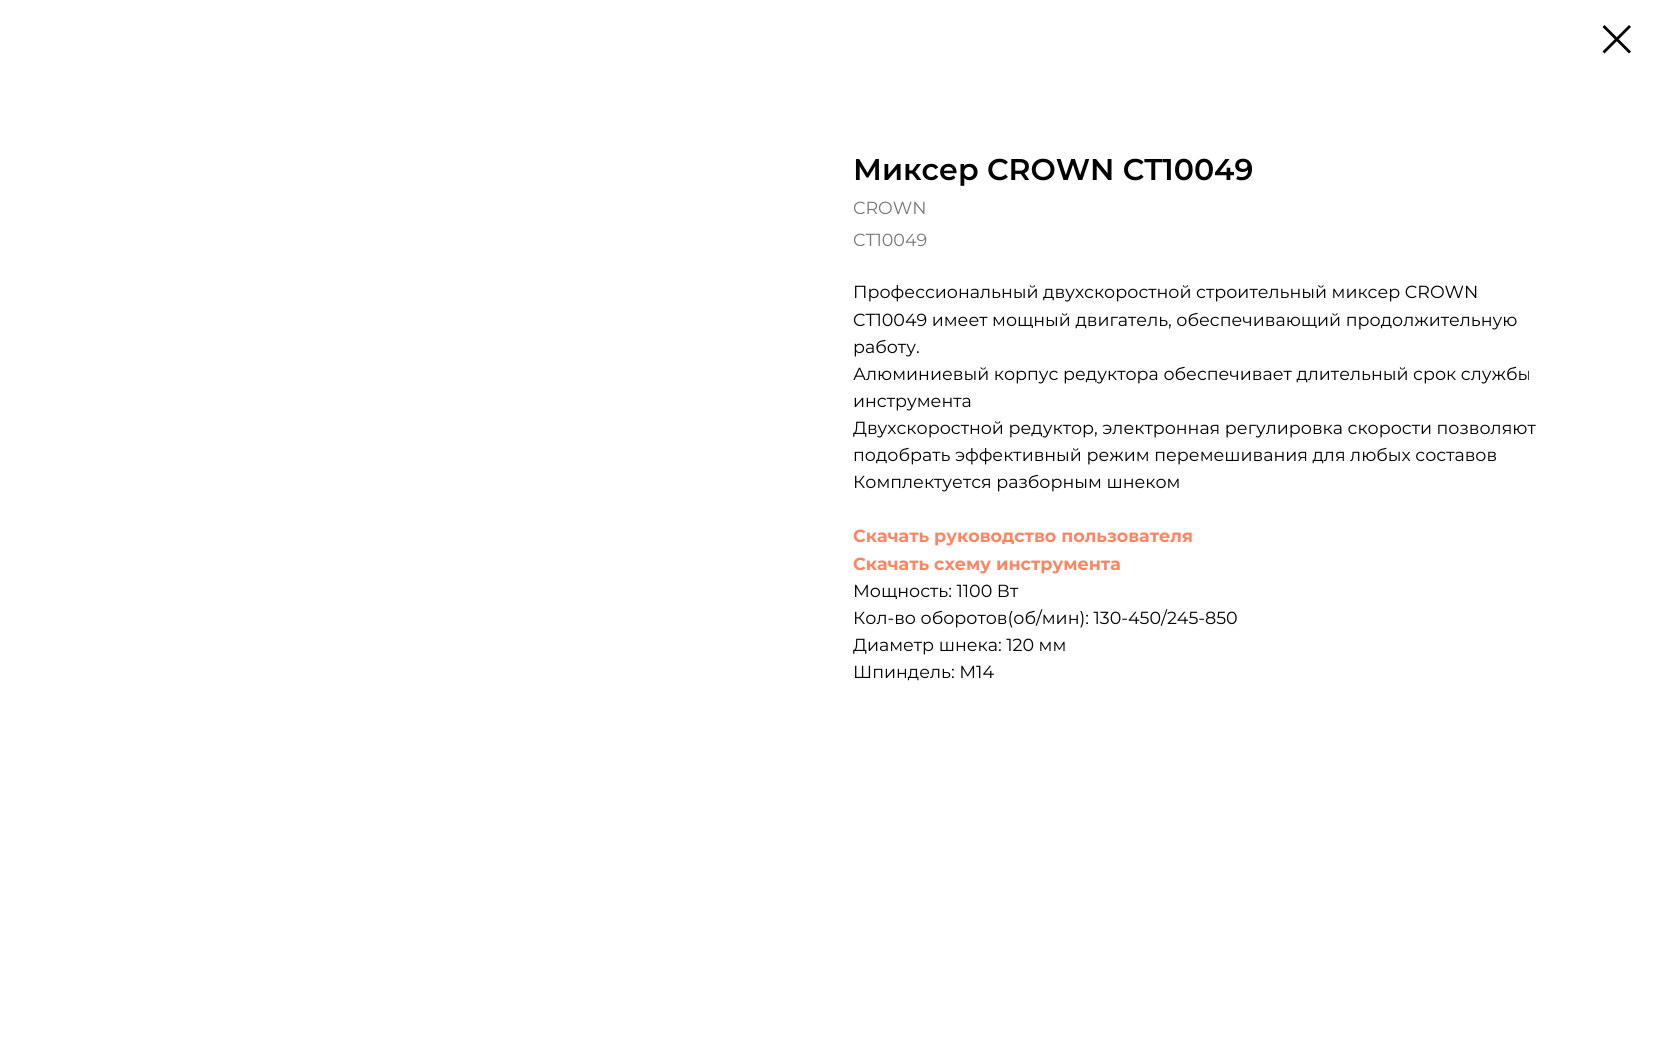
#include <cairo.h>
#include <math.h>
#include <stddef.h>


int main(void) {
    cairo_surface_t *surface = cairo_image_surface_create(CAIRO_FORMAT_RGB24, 1656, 1061);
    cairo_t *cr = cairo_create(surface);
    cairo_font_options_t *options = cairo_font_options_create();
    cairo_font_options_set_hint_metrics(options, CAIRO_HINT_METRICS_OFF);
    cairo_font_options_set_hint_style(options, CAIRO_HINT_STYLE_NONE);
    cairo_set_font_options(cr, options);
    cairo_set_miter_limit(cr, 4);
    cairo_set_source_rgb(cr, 1, 1, 1);
    cairo_paint(cr);
    cairo_set_source_rgb(cr, 0, 0, 0);
    cairo_set_fill_rule(cr, CAIRO_FILL_RULE_EVEN_ODD);
    cairo_new_path(cr);
    cairo_move_to(cr, 1602.5, 27);
    cairo_line_to(cr, 1604.5, 25);
    cairo_line_to(cr, 1631, 51.5);
    cairo_line_to(cr, 1629, 53.5);
    cairo_close_path(cr);
    cairo_fill(cr);
    cairo_new_path(cr);
    cairo_move_to(cr, 1629, 25);
    cairo_line_to(cr, 1631, 27);
    cairo_line_to(cr, 1604.5, 53.5);
    cairo_line_to(cr, 1602.5, 51.5);
    cairo_close_path(cr);
    cairo_fill(cr);
    cairo_select_font_face(cr, "Montserrat SemiBold", CAIRO_FONT_SLANT_NORMAL, CAIRO_FONT_WEIGHT_NORMAL);
    cairo_set_font_size(cr, 30);
    cairo_move_to(cr, 853, 180);
    cairo_show_text(cr, "Миксер CROWN CT10049");
    cairo_select_font_face(cr, "Montserrat", CAIRO_FONT_SLANT_NORMAL, CAIRO_FONT_WEIGHT_NORMAL);
    cairo_set_font_size(cr, 17.5);
    cairo_set_source_rgb(cr, 0.467, 0.467, 0.467);
    cairo_move_to(cr, 853, 214);
    cairo_show_text(cr, "CROWN");
    cairo_move_to(cr, 853, 246);
    cairo_show_text(cr, "CT10049");
    cairo_set_source_rgb(cr, 0, 0, 0);
    cairo_move_to(cr, 853, 298);
    cairo_show_text(cr, "Профессиональный двухскоростной строительный миксер CROWN");
    cairo_move_to(cr, 853, 326);
    cairo_show_text(cr, "CT10049 имеет мощный двигатель, обеcпечивающий продолжительную");
    cairo_move_to(cr, 853, 353);
    cairo_show_text(cr, "работу.");
    cairo_move_to(cr, 853, 380);
    cairo_show_text(cr, "Алюминиевый корпус редуктора обеспечивает длительный срок службы");
    cairo_move_to(cr, 853, 407);
    cairo_show_text(cr, "инструмента");
    cairo_move_to(cr, 853, 434);
    cairo_show_text(cr, "Двухскоростной редуктор, электронная регулировка скорости позволяют");
    cairo_move_to(cr, 853, 461);
    cairo_show_text(cr, "подобрать эффективный режим перемешивания для любых составов");
    cairo_move_to(cr, 853, 488);
    cairo_show_text(cr, "Комплектуется разборным шнеком");
    cairo_select_font_face(cr, "Montserrat", CAIRO_FONT_SLANT_NORMAL, CAIRO_FONT_WEIGHT_BOLD);
    cairo_set_source_rgb(cr, 1, 0.522, 0.384);
    cairo_move_to(cr, 853, 542);
    cairo_show_text(cr, "Скачать руководство пользователя");
    cairo_move_to(cr, 853, 570);
    cairo_show_text(cr, "Скачать схему инструмента");
    cairo_select_font_face(cr, "Montserrat", CAIRO_FONT_SLANT_NORMAL, CAIRO_FONT_WEIGHT_NORMAL);
    cairo_set_source_rgb(cr, 0, 0, 0);
    cairo_move_to(cr, 853, 597);
    cairo_show_text(cr, "Мощность: 1100 Вт");
    cairo_move_to(cr, 853, 624);
    cairo_show_text(cr, "Кол-во оборотов(об/мин): 130-450/245-850");
    cairo_move_to(cr, 853, 651);
    cairo_show_text(cr, "Диаметр шнека: 120 мм");
    cairo_move_to(cr, 853, 678);
    cairo_show_text(cr, "Шпиндель: М14");
    cairo_surface_write_to_png(surface, "page.png");
    cairo_font_options_destroy(options);
    cairo_destroy(cr);
    cairo_surface_destroy(surface);
    return 0;
}
